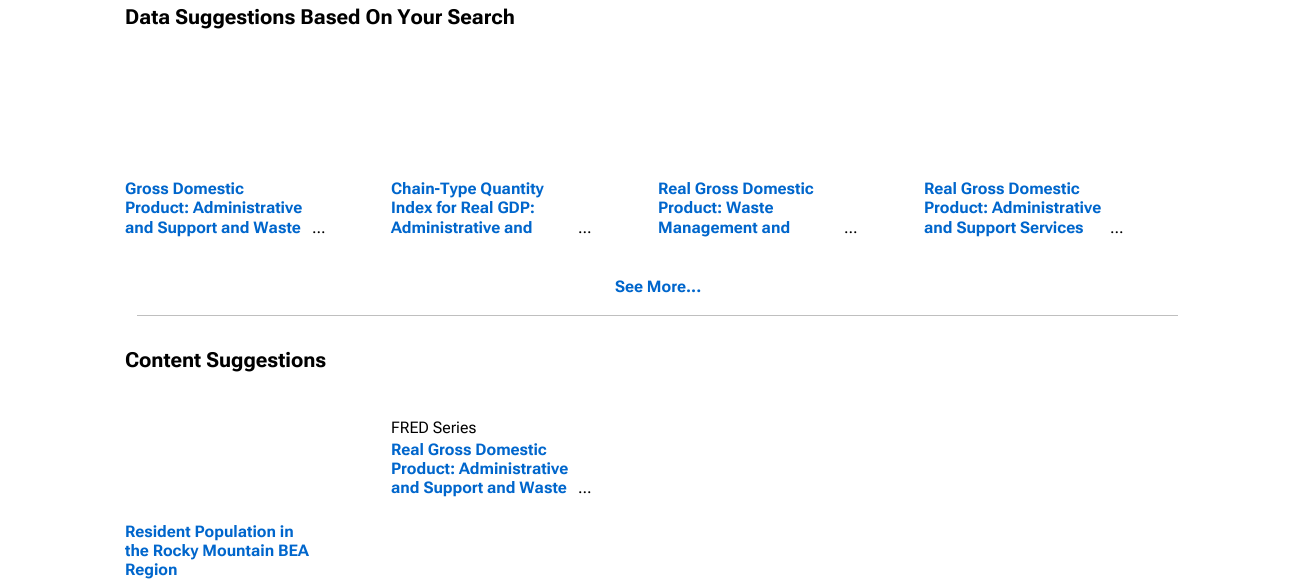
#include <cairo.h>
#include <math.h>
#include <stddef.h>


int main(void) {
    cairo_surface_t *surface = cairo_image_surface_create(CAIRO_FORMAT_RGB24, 1300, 583);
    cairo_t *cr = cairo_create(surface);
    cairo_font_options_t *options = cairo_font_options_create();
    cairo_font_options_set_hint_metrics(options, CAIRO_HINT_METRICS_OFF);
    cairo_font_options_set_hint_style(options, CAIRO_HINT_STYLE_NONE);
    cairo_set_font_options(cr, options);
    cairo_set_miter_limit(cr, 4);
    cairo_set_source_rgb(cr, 1, 1, 1);
    cairo_paint(cr);
    cairo_select_font_face(cr, "Roboto Flex", CAIRO_FONT_SLANT_NORMAL, CAIRO_FONT_WEIGHT_BOLD);
    cairo_set_font_size(cr, 20.75);
    cairo_set_source_rgb(cr, 0, 0, 0);
    cairo_move_to(cr, 125, 24);
    cairo_show_text(cr, "Data Suggestions Based On Your Search");
    cairo_select_font_face(cr, "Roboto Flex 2", CAIRO_FONT_SLANT_NORMAL, CAIRO_FONT_WEIGHT_BOLD);
    cairo_set_font_size(cr, 16);
    cairo_set_source_rgb(cr, 0, 0.4, 0.8);
    cairo_move_to(cr, 125, 194);
    cairo_show_text(cr, "Gross Domestic");
    cairo_move_to(cr, 125, 213);
    cairo_show_text(cr, "Product: Administrative");
    cairo_move_to(cr, 125, 233);
    cairo_show_text(cr, "and Support and Waste");
    cairo_select_font_face(cr, "Roboto Flex", CAIRO_FONT_SLANT_NORMAL, CAIRO_FONT_WEIGHT_NORMAL);
    cairo_set_source_rgb(cr, 0, 0, 0);
    cairo_move_to(cr, 312, 233);
    cairo_show_text(cr, "...");
    cairo_select_font_face(cr, "Roboto Flex 2", CAIRO_FONT_SLANT_NORMAL, CAIRO_FONT_WEIGHT_BOLD);
    cairo_set_source_rgb(cr, 0, 0.4, 0.8);
    cairo_move_to(cr, 391, 194);
    cairo_show_text(cr, "Chain-Type Quantity");
    cairo_move_to(cr, 391, 213);
    cairo_show_text(cr, "Index for Real GDP:");
    cairo_move_to(cr, 391, 233);
    cairo_show_text(cr, "Administrative and");
    cairo_select_font_face(cr, "Roboto Flex", CAIRO_FONT_SLANT_NORMAL, CAIRO_FONT_WEIGHT_NORMAL);
    cairo_set_source_rgb(cr, 0, 0, 0);
    cairo_move_to(cr, 578, 233);
    cairo_show_text(cr, "...");
    cairo_select_font_face(cr, "Roboto Flex 2", CAIRO_FONT_SLANT_NORMAL, CAIRO_FONT_WEIGHT_BOLD);
    cairo_set_source_rgb(cr, 0, 0.4, 0.8);
    cairo_move_to(cr, 658, 194);
    cairo_show_text(cr, "Real Gross Domestic");
    cairo_move_to(cr, 658, 213);
    cairo_show_text(cr, "Product: Waste");
    cairo_move_to(cr, 658, 233);
    cairo_show_text(cr, "Management and");
    cairo_select_font_face(cr, "Roboto Flex", CAIRO_FONT_SLANT_NORMAL, CAIRO_FONT_WEIGHT_NORMAL);
    cairo_set_source_rgb(cr, 0, 0, 0);
    cairo_move_to(cr, 844, 233);
    cairo_show_text(cr, "...");
    cairo_select_font_face(cr, "Roboto Flex 2", CAIRO_FONT_SLANT_NORMAL, CAIRO_FONT_WEIGHT_BOLD);
    cairo_set_source_rgb(cr, 0, 0.4, 0.8);
    cairo_move_to(cr, 924, 194);
    cairo_show_text(cr, "Real Gross Domestic");
    cairo_move_to(cr, 924, 213);
    cairo_show_text(cr, "Product: Administrative");
    cairo_move_to(cr, 924, 233);
    cairo_show_text(cr, "and Support Services");
    cairo_select_font_face(cr, "Roboto Flex", CAIRO_FONT_SLANT_NORMAL, CAIRO_FONT_WEIGHT_NORMAL);
    cairo_set_source_rgb(cr, 0, 0, 0);
    cairo_move_to(cr, 1110, 233);
    cairo_show_text(cr, "...");
    cairo_select_font_face(cr, "Roboto Flex 2", CAIRO_FONT_SLANT_NORMAL, CAIRO_FONT_WEIGHT_BOLD);
    cairo_set_source_rgb(cr, 0, 0.4, 0.8);
    cairo_move_to(cr, 615, 292);
    cairo_show_text(cr, "See More...");
    cairo_set_source_rgb(cr, 0.749, 0.749, 0.749);
    cairo_rectangle(cr, 137, 315, 1041, 1);
    cairo_fill(cr);
    cairo_select_font_face(cr, "Roboto Flex", CAIRO_FONT_SLANT_NORMAL, CAIRO_FONT_WEIGHT_BOLD);
    cairo_set_font_size(cr, 20.75);
    cairo_set_source_rgb(cr, 0, 0, 0);
    cairo_move_to(cr, 125, 367);
    cairo_show_text(cr, "Content Suggestions");
    cairo_select_font_face(cr, "Roboto Flex", CAIRO_FONT_SLANT_NORMAL, CAIRO_FONT_WEIGHT_NORMAL);
    cairo_set_font_size(cr, 16);
    cairo_move_to(cr, 391, 433);
    cairo_show_text(cr, "FRED Series");
    cairo_select_font_face(cr, "Roboto Flex 2", CAIRO_FONT_SLANT_NORMAL, CAIRO_FONT_WEIGHT_BOLD);
    cairo_set_source_rgb(cr, 0, 0.4, 0.8);
    cairo_move_to(cr, 391, 455);
    cairo_show_text(cr, "Real Gross Domestic");
    cairo_move_to(cr, 391, 474);
    cairo_show_text(cr, "Product: Administrative");
    cairo_move_to(cr, 391, 493);
    cairo_show_text(cr, "and Support and Waste");
    cairo_select_font_face(cr, "Roboto Flex", CAIRO_FONT_SLANT_NORMAL, CAIRO_FONT_WEIGHT_NORMAL);
    cairo_set_source_rgb(cr, 0, 0, 0);
    cairo_move_to(cr, 578, 493);
    cairo_show_text(cr, "...");
    cairo_select_font_face(cr, "Roboto Flex 2", CAIRO_FONT_SLANT_NORMAL, CAIRO_FONT_WEIGHT_BOLD);
    cairo_set_source_rgb(cr, 0, 0.4, 0.8);
    cairo_move_to(cr, 125, 537);
    cairo_show_text(cr, "Resident Population in");
    cairo_move_to(cr, 125, 556);
    cairo_show_text(cr, "the Rocky Mountain BEA");
    cairo_move_to(cr, 125, 575);
    cairo_show_text(cr, "Region");
    cairo_surface_write_to_png(surface, "page.png");
    cairo_font_options_destroy(options);
    cairo_destroy(cr);
    cairo_surface_destroy(surface);
    return 0;
}
